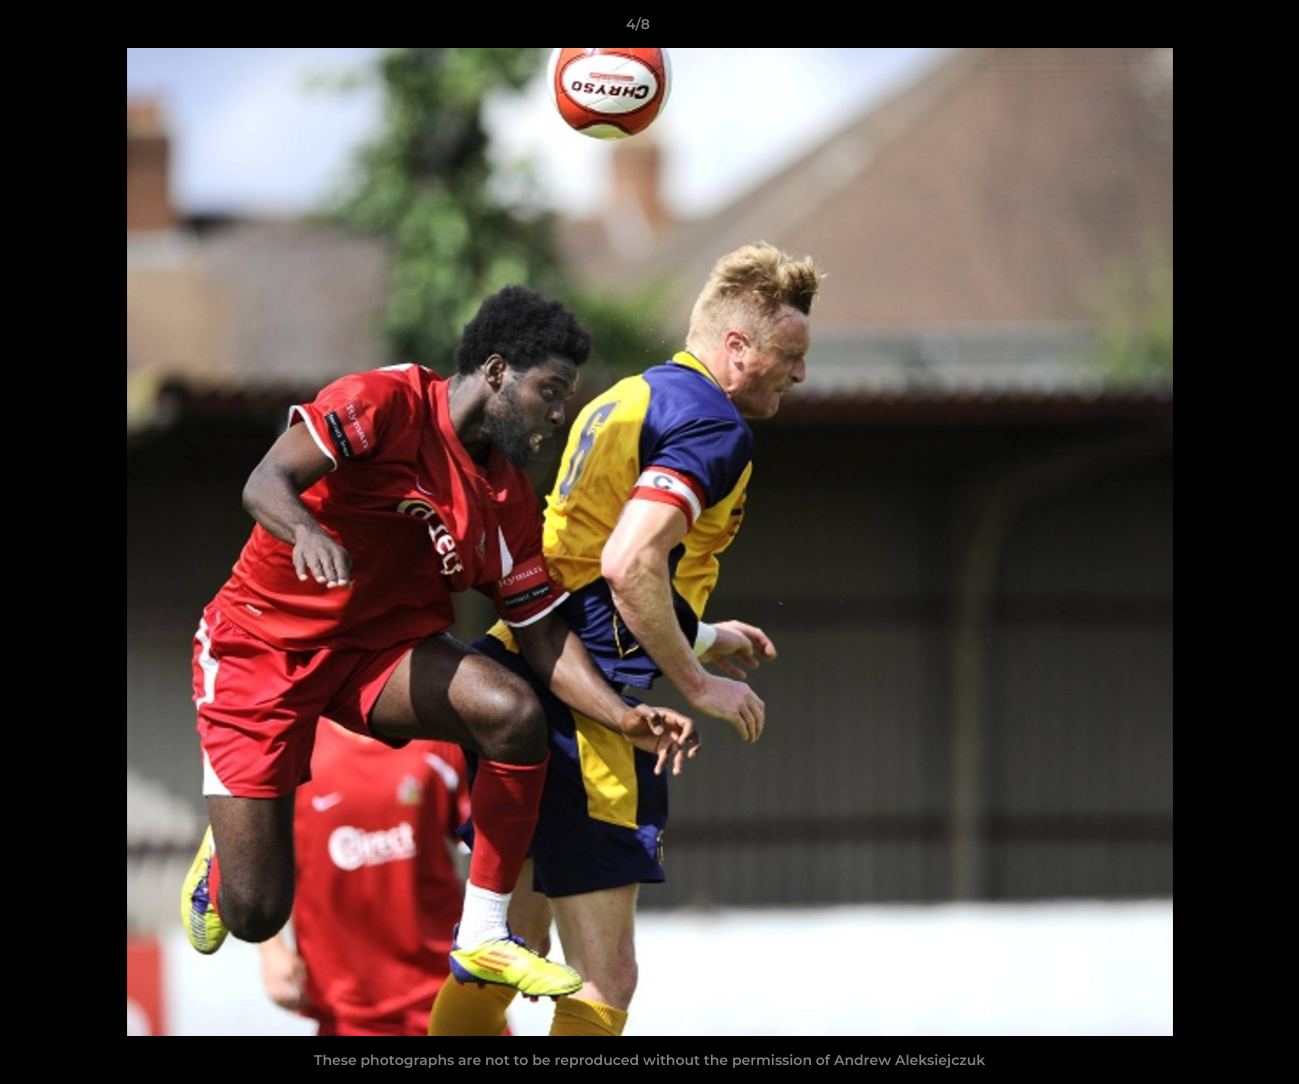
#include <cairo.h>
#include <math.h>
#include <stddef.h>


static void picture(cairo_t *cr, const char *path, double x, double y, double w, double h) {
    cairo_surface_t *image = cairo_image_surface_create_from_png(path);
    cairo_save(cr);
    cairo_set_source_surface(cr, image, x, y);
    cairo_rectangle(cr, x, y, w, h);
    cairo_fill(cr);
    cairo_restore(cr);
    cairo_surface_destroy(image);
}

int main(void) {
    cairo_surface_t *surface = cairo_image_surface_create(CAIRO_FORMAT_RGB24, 1299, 1084);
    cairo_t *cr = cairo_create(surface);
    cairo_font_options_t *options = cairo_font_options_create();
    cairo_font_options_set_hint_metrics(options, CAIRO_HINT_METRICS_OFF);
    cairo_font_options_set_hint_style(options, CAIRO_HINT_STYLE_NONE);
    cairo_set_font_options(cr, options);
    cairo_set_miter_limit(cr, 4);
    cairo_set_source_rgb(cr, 0, 0, 0);
    cairo_paint(cr);
    cairo_select_font_face(cr, "Montserrat SemiBold", CAIRO_FONT_SLANT_NORMAL, CAIRO_FONT_WEIGHT_NORMAL);
    cairo_set_font_size(cr, 14);
    cairo_set_source_rgb(cr, 0.502, 0.502, 0.502);
    cairo_move_to(cr, 626, 29);
    cairo_show_text(cr, "4/8");
    picture(cr, "img1.png", 127, 48, 1046, 988);
    cairo_move_to(cr, 314, 1065);
    cairo_show_text(cr, "These photographs are not to be reproduced without the permission of Andrew Aleksiejczuk");
    cairo_surface_write_to_png(surface, "page.png");
    cairo_font_options_destroy(options);
    cairo_destroy(cr);
    cairo_surface_destroy(surface);
    return 0;
}
